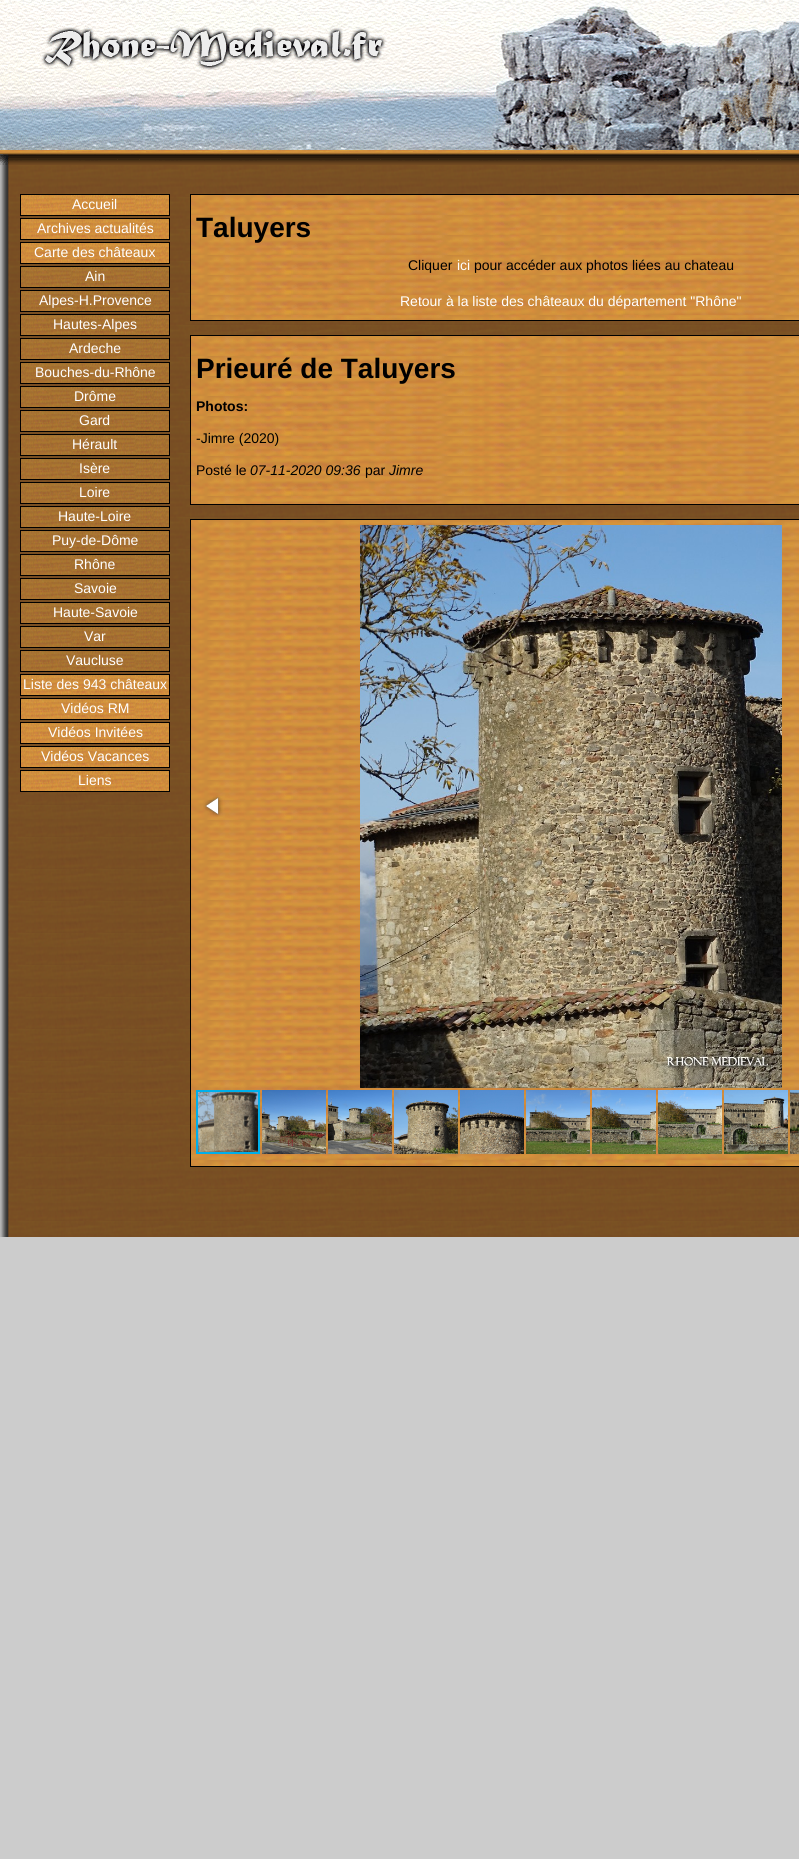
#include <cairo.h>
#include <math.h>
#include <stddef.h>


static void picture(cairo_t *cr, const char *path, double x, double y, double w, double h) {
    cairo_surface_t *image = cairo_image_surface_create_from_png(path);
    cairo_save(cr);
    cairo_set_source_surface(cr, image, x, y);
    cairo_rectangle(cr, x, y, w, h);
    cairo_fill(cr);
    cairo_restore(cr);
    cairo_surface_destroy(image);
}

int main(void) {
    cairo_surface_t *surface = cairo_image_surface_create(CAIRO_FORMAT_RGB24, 799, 1859);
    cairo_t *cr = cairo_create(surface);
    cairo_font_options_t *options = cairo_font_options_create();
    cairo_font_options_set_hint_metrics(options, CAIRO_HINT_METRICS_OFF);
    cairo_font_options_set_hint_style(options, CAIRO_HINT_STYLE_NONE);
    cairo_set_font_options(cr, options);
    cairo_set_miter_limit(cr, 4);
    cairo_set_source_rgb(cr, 0.8, 0.8, 0.8);
    cairo_paint(cr);
    picture(cr, "img1.png", 0, 150, 799, 15);
    picture(cr, "img2.png", 0, 0, 799, 150);
    picture(cr, "img3.png", 0, 165, 799, 1072);
    picture(cr, "img4.png", 21, 195, 148, 20);
    cairo_rectangle(cr, 20.5, 194.5, 149, 21);
    cairo_set_source_rgb(cr, 0, 0, 0);
    cairo_set_line_width(cr, 1);
    cairo_stroke(cr);
    cairo_select_font_face(cr, "Liberation Sans", CAIRO_FONT_SLANT_NORMAL, CAIRO_FONT_WEIGHT_NORMAL);
    cairo_set_font_size(cr, 14);
    cairo_set_source_rgb(cr, 1, 1, 1);
    cairo_move_to(cr, 72, 209);
    cairo_show_text(cr, "Accueil");
    picture(cr, "img4.png", 21, 219, 148, 20);
    cairo_rectangle(cr, 20.5, 218.5, 149, 21);
    cairo_set_source_rgb(cr, 0, 0, 0);
    cairo_stroke(cr);
    cairo_set_source_rgb(cr, 1, 1, 1);
    cairo_move_to(cr, 37, 233);
    cairo_show_text(cr, "Archives actualités");
    picture(cr, "img4.png", 21, 243, 148, 20);
    cairo_rectangle(cr, 20.5, 242.5, 149, 21);
    cairo_set_source_rgb(cr, 0, 0, 0);
    cairo_stroke(cr);
    cairo_set_source_rgb(cr, 1, 1, 1);
    cairo_move_to(cr, 34, 257);
    cairo_show_text(cr, "Carte des châteaux");
    picture(cr, "img5.png", 21, 267, 148, 20);
    cairo_rectangle(cr, 20.5, 266.5, 149, 21);
    cairo_set_source_rgb(cr, 0, 0, 0);
    cairo_stroke(cr);
    cairo_set_source_rgb(cr, 1, 1, 1);
    cairo_move_to(cr, 85, 281);
    cairo_show_text(cr, "Ain");
    picture(cr, "img5.png", 21, 291, 148, 20);
    cairo_rectangle(cr, 20.5, 290.5, 149, 21);
    cairo_set_source_rgb(cr, 0, 0, 0);
    cairo_stroke(cr);
    cairo_set_source_rgb(cr, 1, 1, 1);
    cairo_move_to(cr, 39, 305);
    cairo_show_text(cr, "Alpes-H.Provence");
    picture(cr, "img5.png", 21, 315, 148, 20);
    cairo_rectangle(cr, 20.5, 314.5, 149, 21);
    cairo_set_source_rgb(cr, 0, 0, 0);
    cairo_stroke(cr);
    cairo_set_source_rgb(cr, 1, 1, 1);
    cairo_move_to(cr, 53, 329);
    cairo_show_text(cr, "Hautes-Alpes");
    picture(cr, "img5.png", 21, 339, 148, 20);
    cairo_rectangle(cr, 20.5, 338.5, 149, 21);
    cairo_set_source_rgb(cr, 0, 0, 0);
    cairo_stroke(cr);
    cairo_set_source_rgb(cr, 1, 1, 1);
    cairo_move_to(cr, 69, 353);
    cairo_show_text(cr, "Ardeche");
    picture(cr, "img5.png", 21, 363, 148, 20);
    cairo_rectangle(cr, 20.5, 362.5, 149, 21);
    cairo_set_source_rgb(cr, 0, 0, 0);
    cairo_stroke(cr);
    cairo_set_source_rgb(cr, 1, 1, 1);
    cairo_move_to(cr, 35, 377);
    cairo_show_text(cr, "Bouches-du-Rhône");
    picture(cr, "img5.png", 21, 387, 148, 20);
    cairo_rectangle(cr, 20.5, 386.5, 149, 21);
    cairo_set_source_rgb(cr, 0, 0, 0);
    cairo_stroke(cr);
    cairo_set_source_rgb(cr, 1, 1, 1);
    cairo_move_to(cr, 74, 401);
    cairo_show_text(cr, "Drôme");
    picture(cr, "img5.png", 21, 411, 148, 20);
    cairo_rectangle(cr, 20.5, 410.5, 149, 21);
    cairo_set_source_rgb(cr, 0, 0, 0);
    cairo_stroke(cr);
    cairo_set_source_rgb(cr, 1, 1, 1);
    cairo_move_to(cr, 79, 425);
    cairo_show_text(cr, "Gard");
    picture(cr, "img5.png", 21, 435, 148, 20);
    cairo_rectangle(cr, 20.5, 434.5, 149, 21);
    cairo_set_source_rgb(cr, 0, 0, 0);
    cairo_stroke(cr);
    cairo_set_source_rgb(cr, 1, 1, 1);
    cairo_move_to(cr, 72, 449);
    cairo_show_text(cr, "Hérault");
    picture(cr, "img5.png", 21, 459, 148, 20);
    cairo_rectangle(cr, 20.5, 458.5, 149, 21);
    cairo_set_source_rgb(cr, 0, 0, 0);
    cairo_stroke(cr);
    cairo_set_source_rgb(cr, 1, 1, 1);
    cairo_move_to(cr, 79, 473);
    cairo_show_text(cr, "Isère");
    picture(cr, "img5.png", 21, 483, 148, 20);
    cairo_rectangle(cr, 20.5, 482.5, 149, 21);
    cairo_set_source_rgb(cr, 0, 0, 0);
    cairo_stroke(cr);
    cairo_set_source_rgb(cr, 1, 1, 1);
    cairo_move_to(cr, 79, 497);
    cairo_show_text(cr, "Loire");
    picture(cr, "img5.png", 21, 507, 148, 20);
    cairo_rectangle(cr, 20.5, 506.5, 149, 21);
    cairo_set_source_rgb(cr, 0, 0, 0);
    cairo_stroke(cr);
    cairo_set_source_rgb(cr, 1, 1, 1);
    cairo_move_to(cr, 58, 521);
    cairo_show_text(cr, "Haute-Loire");
    picture(cr, "img5.png", 21, 531, 148, 20);
    cairo_rectangle(cr, 20.5, 530.5, 149, 21);
    cairo_set_source_rgb(cr, 0, 0, 0);
    cairo_stroke(cr);
    cairo_set_source_rgb(cr, 1, 1, 1);
    cairo_move_to(cr, 52, 545);
    cairo_show_text(cr, "Puy-de-Dôme");
    picture(cr, "img5.png", 21, 555, 148, 20);
    cairo_rectangle(cr, 20.5, 554.5, 149, 21);
    cairo_set_source_rgb(cr, 0, 0, 0);
    cairo_stroke(cr);
    cairo_set_source_rgb(cr, 1, 1, 1);
    cairo_move_to(cr, 74, 569);
    cairo_show_text(cr, "Rhône");
    picture(cr, "img5.png", 21, 579, 148, 20);
    cairo_rectangle(cr, 20.5, 578.5, 149, 21);
    cairo_set_source_rgb(cr, 0, 0, 0);
    cairo_stroke(cr);
    cairo_set_source_rgb(cr, 1, 1, 1);
    cairo_move_to(cr, 74, 593);
    cairo_show_text(cr, "Savoie");
    picture(cr, "img5.png", 21, 603, 148, 20);
    cairo_rectangle(cr, 20.5, 602.5, 149, 21);
    cairo_set_source_rgb(cr, 0, 0, 0);
    cairo_stroke(cr);
    cairo_set_source_rgb(cr, 1, 1, 1);
    cairo_move_to(cr, 53, 617);
    cairo_show_text(cr, "Haute-Savoie");
    picture(cr, "img5.png", 21, 627, 148, 20);
    cairo_rectangle(cr, 20.5, 626.5, 149, 21);
    cairo_set_source_rgb(cr, 0, 0, 0);
    cairo_stroke(cr);
    cairo_set_source_rgb(cr, 1, 1, 1);
    cairo_move_to(cr, 84, 641);
    cairo_show_text(cr, "Var");
    picture(cr, "img5.png", 21, 651, 148, 20);
    cairo_rectangle(cr, 20.5, 650.5, 149, 21);
    cairo_set_source_rgb(cr, 0, 0, 0);
    cairo_stroke(cr);
    cairo_set_source_rgb(cr, 1, 1, 1);
    cairo_move_to(cr, 66, 665);
    cairo_show_text(cr, "Vaucluse");
    picture(cr, "img4.png", 21, 675, 148, 20);
    cairo_rectangle(cr, 20.5, 674.5, 149, 21);
    cairo_set_source_rgb(cr, 0, 0, 0);
    cairo_stroke(cr);
    cairo_set_source_rgb(cr, 1, 1, 1);
    cairo_move_to(cr, 23, 689);
    cairo_show_text(cr, "Liste des 943 châteaux");
    picture(cr, "img4.png", 21, 699, 148, 20);
    cairo_rectangle(cr, 20.5, 698.5, 149, 21);
    cairo_set_source_rgb(cr, 0, 0, 0);
    cairo_stroke(cr);
    cairo_set_source_rgb(cr, 1, 1, 1);
    cairo_move_to(cr, 61, 713);
    cairo_show_text(cr, "Vidéos RM");
    picture(cr, "img4.png", 21, 723, 148, 20);
    cairo_rectangle(cr, 20.5, 722.5, 149, 21);
    cairo_set_source_rgb(cr, 0, 0, 0);
    cairo_stroke(cr);
    cairo_set_source_rgb(cr, 1, 1, 1);
    cairo_move_to(cr, 48, 737);
    cairo_show_text(cr, "Vidéos Invitées");
    picture(cr, "img4.png", 21, 747, 148, 20);
    cairo_rectangle(cr, 20.5, 746.5, 149, 21);
    cairo_set_source_rgb(cr, 0, 0, 0);
    cairo_stroke(cr);
    cairo_set_source_rgb(cr, 1, 1, 1);
    cairo_move_to(cr, 41, 761);
    cairo_show_text(cr, "Vidéos Vacances");
    picture(cr, "img4.png", 21, 771, 148, 20);
    cairo_rectangle(cr, 20.5, 770.5, 149, 21);
    cairo_set_source_rgb(cr, 0, 0, 0);
    cairo_stroke(cr);
    cairo_set_source_rgb(cr, 1, 1, 1);
    cairo_move_to(cr, 78, 785);
    cairo_show_text(cr, "Liens");
    picture(cr, "img6.png", 191, 195, 608, 125);
    cairo_rectangle(cr, 190.5, 194.5, 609, 126);
    cairo_set_source_rgb(cr, 0, 0, 0);
    cairo_stroke(cr);
    cairo_select_font_face(cr, "Liberation Sans", CAIRO_FONT_SLANT_NORMAL, CAIRO_FONT_WEIGHT_BOLD);
    cairo_set_font_size(cr, 28);
    cairo_move_to(cr, 196, 237);
    cairo_show_text(cr, "Taluyers");
    cairo_select_font_face(cr, "Liberation Sans", CAIRO_FONT_SLANT_NORMAL, CAIRO_FONT_WEIGHT_NORMAL);
    cairo_set_font_size(cr, 14);
    cairo_move_to(cr, 408, 270);
    cairo_show_text(cr, "Cliquer");
    cairo_set_source_rgb(cr, 1, 1, 1);
    cairo_move_to(cr, 457, 270);
    cairo_show_text(cr, "ici");
    cairo_set_source_rgb(cr, 0, 0, 0);
    cairo_move_to(cr, 474, 270);
    cairo_show_text(cr, "pour accéder aux photos liées au chateau");
    cairo_set_source_rgb(cr, 1, 1, 1);
    cairo_move_to(cr, 400, 306);
    cairo_show_text(cr, "Retour à la liste des châteaux du département \"Rhône\"");
    picture(cr, "img7.png", 191, 336, 608, 168);
    cairo_rectangle(cr, 190.5, 335.5, 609, 169);
    cairo_set_source_rgb(cr, 0, 0, 0);
    cairo_stroke(cr);
    cairo_select_font_face(cr, "Liberation Sans", CAIRO_FONT_SLANT_NORMAL, CAIRO_FONT_WEIGHT_BOLD);
    cairo_set_font_size(cr, 28);
    cairo_move_to(cr, 196, 378);
    cairo_show_text(cr, "Prieuré de Taluyers");
    cairo_set_font_size(cr, 14);
    cairo_move_to(cr, 196, 411);
    cairo_show_text(cr, "Photos:");
    cairo_select_font_face(cr, "Liberation Sans", CAIRO_FONT_SLANT_NORMAL, CAIRO_FONT_WEIGHT_NORMAL);
    cairo_move_to(cr, 196, 443);
    cairo_show_text(cr, "-Jimre (2020)");
    cairo_move_to(cr, 196, 475);
    cairo_show_text(cr, "Posté le");
    cairo_select_font_face(cr, "Liberation Sans", CAIRO_FONT_SLANT_ITALIC, CAIRO_FONT_WEIGHT_NORMAL);
    cairo_move_to(cr, 250, 475);
    cairo_show_text(cr, "07-11-2020 09:36");
    cairo_select_font_face(cr, "Liberation Sans", CAIRO_FONT_SLANT_NORMAL, CAIRO_FONT_WEIGHT_NORMAL);
    cairo_move_to(cr, 365, 475);
    cairo_show_text(cr, "par");
    cairo_select_font_face(cr, "Liberation Sans", CAIRO_FONT_SLANT_ITALIC, CAIRO_FONT_WEIGHT_NORMAL);
    cairo_move_to(cr, 389, 475);
    cairo_show_text(cr, "Jimre");
    picture(cr, "img8.png", 191, 520, 608, 646);
    cairo_rectangle(cr, 190.5, 519.5, 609, 647);
    cairo_stroke(cr);
    picture(cr, "img9.png", 203, 795, 20, 22);
    picture(cr, "img10.png", 360, 525, 422, 563);
    picture(cr, "img20.png", 198, 1092, 60, 60);
    cairo_rectangle(cr, 197, 1091, 62, 62);
    cairo_set_source_rgb(cr, 0, 0.686, 0.918);
    cairo_set_line_width(cr, 2);
    cairo_stroke(cr);
    picture(cr, "img11.png", 262, 1090, 64, 64);
    picture(cr, "img12.png", 328, 1090, 64, 64);
    picture(cr, "img13.png", 394, 1090, 64, 64);
    picture(cr, "img14.png", 460, 1090, 64, 64);
    picture(cr, "img15.png", 526, 1090, 64, 64);
    picture(cr, "img16.png", 592, 1090, 64, 64);
    picture(cr, "img17.png", 658, 1090, 64, 64);
    picture(cr, "img18.png", 724, 1090, 64, 64);
    picture(cr, "img19.png", 790, 1090, 9, 64);
    cairo_surface_write_to_png(surface, "page.png");
    cairo_font_options_destroy(options);
    cairo_destroy(cr);
    cairo_surface_destroy(surface);
    return 0;
}
